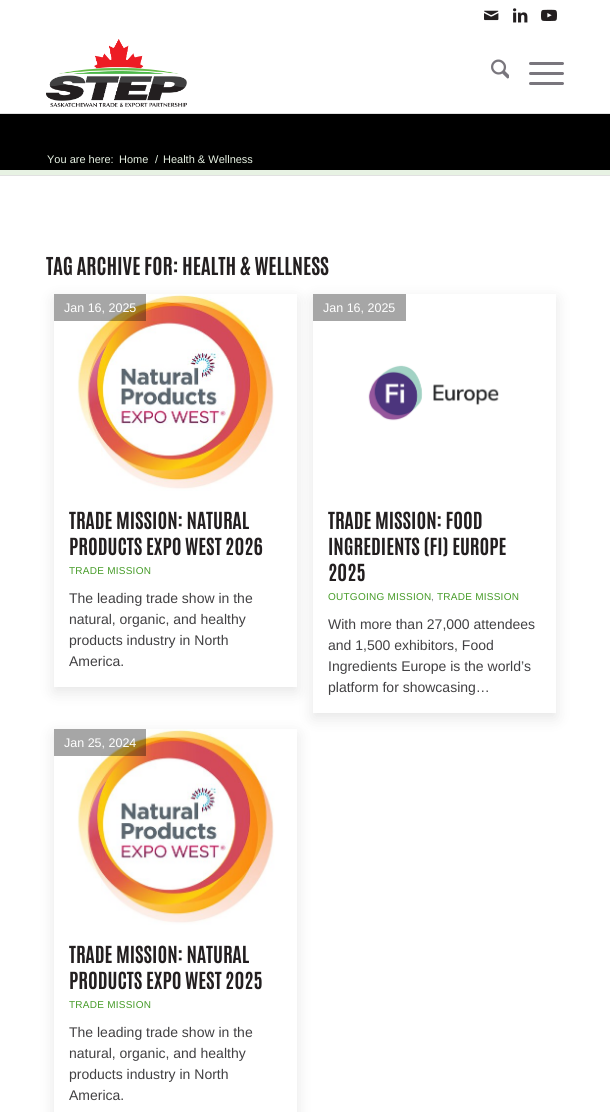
#include <cairo.h>
#include <math.h>
#include <stddef.h>


static void spaced_text(cairo_t *cr, double x, double y, const char *s, double letter, double word) {
    cairo_move_to(cr, x, y);
    while (*s) {
        char ch[5] = {0};
        int n = 0;
        do ch[n++] = *s++; while ((*s & 0xC0) == 0x80);
        cairo_show_text(cr, ch);
        cairo_rel_move_to(cr, letter + word * (*ch == ' '), 0);
    }
}

static void round_rect(cairo_t *cr, double x, double y, double w, double h, double r) {
    cairo_new_sub_path(cr);
    cairo_arc(cr, x + w - r, y + h - r, r, 0, M_PI / 2);
    cairo_arc(cr, x + r, y + h - r, r, M_PI / 2, M_PI);
    cairo_arc(cr, x + r, y + r, r, M_PI, 1.5 * M_PI);
    cairo_arc(cr, x + w - r, y + r, r, 1.5 * M_PI, 2 * M_PI);
    cairo_close_path(cr);
}

static void shadow(cairo_t *cr, double x, double y, double w, double h, double r, double blur, double alpha) {
    cairo_push_group_with_content(cr, CAIRO_CONTENT_ALPHA);
    cairo_set_operator(cr, CAIRO_OPERATOR_SOURCE);
    for (int i = 15; i >= -15 && fmin(w, h) + blur * i / 3 > 0; i -= 2) {
        double e = blur * i / 6;
        cairo_set_source_rgba(cr, 0, 0, 0, alpha * erfc((i - 1) / 8.5) / 2);
        round_rect(cr, x - e, y - e, w + 2 * e, h + 2 * e, fmax(0, fmin(r + e + blur * .6, fmin(w, h) / 2 + e)));
        cairo_fill(cr);
    }
    cairo_pattern_t *soft = cairo_pop_group(cr);
    cairo_mask(cr, soft);
    cairo_pattern_destroy(soft);
}

static void picture(cairo_t *cr, const char *path, double x, double y, double w, double h) {
    cairo_surface_t *image = cairo_image_surface_create_from_png(path);
    cairo_save(cr);
    cairo_set_source_surface(cr, image, x, y);
    cairo_rectangle(cr, x, y, w, h);
    cairo_fill(cr);
    cairo_restore(cr);
    cairo_surface_destroy(image);
}

int main(void) {
    cairo_surface_t *surface = cairo_image_surface_create(CAIRO_FORMAT_RGB24, 610, 1112);
    cairo_t *cr = cairo_create(surface);
    cairo_font_options_t *options = cairo_font_options_create();
    cairo_font_options_set_hint_metrics(options, CAIRO_HINT_METRICS_OFF);
    cairo_font_options_set_hint_style(options, CAIRO_HINT_STYLE_NONE);
    cairo_set_font_options(cr, options);
    cairo_set_miter_limit(cr, 4);
    cairo_set_source_rgb(cr, 1, 1, 1);
    cairo_paint(cr);
    picture(cr, "img1.png", 484, 10, 15, 11);
    picture(cr, "img2.png", 513, 8, 15, 15);
    picture(cr, "img3.png", 541, 9, 16, 12);
    cairo_set_source_rgb(cr, 0.882, 0.882, 0.882);
    cairo_rectangle(cr, 0, 113, 610, 1);
    cairo_fill(cr);
    picture(cr, "img4.png", 46, 39, 141, 68);
    picture(cr, "img5.png", 491, 59, 18, 20);
    cairo_set_source_rgb(cr, 0.475, 0.463, 0.49);
    round_rect(cr, 529, 72, 35, 3, 1.5);
    cairo_fill(cr);
    round_rect(cr, 529, 62, 35, 3, 1.5);
    cairo_fill(cr);
    round_rect(cr, 529, 82, 35, 3, 1.5);
    cairo_fill(cr);
    cairo_set_source_rgb(cr, 0, 0, 0);
    cairo_rectangle(cr, 0, 114, 610, 56);
    cairo_fill(cr);
    cairo_set_source_rgb(cr, 0.906, 0.949, 0.89);
    cairo_rectangle(cr, 0, 170, 610, 5);
    cairo_fill(cr);
    cairo_select_font_face(cr, "Liberation Sans", CAIRO_FONT_SLANT_NORMAL, CAIRO_FONT_WEIGHT_NORMAL);
    cairo_set_font_size(cr, 11);
    cairo_move_to(cr, 47, 163);
    cairo_show_text(cr, "You are here:");
    cairo_move_to(cr, 119, 163);
    cairo_show_text(cr, "Home");
    cairo_move_to(cr, 155, 163);
    cairo_show_text(cr, "/");
    cairo_move_to(cr, 163, 163);
    cairo_show_text(cr, "Health & Wellness");
    cairo_set_source_rgb(cr, 0.882, 0.882, 0.882);
    cairo_rectangle(cr, 0, 175, 610, 1);
    cairo_fill(cr);
    cairo_select_font_face(cr, "Antonio", CAIRO_FONT_SLANT_NORMAL, CAIRO_FONT_WEIGHT_BOLD);
    cairo_set_font_size(cr, 21);
    cairo_set_source_rgb(cr, 0.137, 0.122, 0.125);
    cairo_move_to(cr, 46, 275);
    cairo_show_text(cr, "TAG ARCHIVE FOR: HEALTH & WELLNESS");
    cairo_save(cr);
    cairo_set_fill_rule(cr, CAIRO_FILL_RULE_EVEN_ODD);
    cairo_new_path(cr);
    cairo_move_to(cr, 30, 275);
    cairo_line_to(cr, 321, 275);
    cairo_line_to(cr, 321, 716);
    cairo_line_to(cr, 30, 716);
    cairo_close_path(cr);
    cairo_move_to(cr, 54, 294);
    cairo_line_to(cr, 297, 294);
    cairo_line_to(cr, 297, 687);
    cairo_line_to(cr, 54, 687);
    cairo_close_path(cr);
    cairo_clip(cr);
    cairo_set_source_rgb(cr, 0, 0, 0);
    shadow(cr, 54, 299, 243, 393, 0, 7.5, 0.1);
    cairo_restore(cr);
    picture(cr, "img6.png", 54, 294, 243, 197);
    cairo_set_source_rgba(cr, 0, 0, 0, 0.35);
    cairo_rectangle(cr, 54, 294, 92, 27);
    cairo_fill(cr);
    cairo_select_font_face(cr, "Liberation Sans", CAIRO_FONT_SLANT_NORMAL, CAIRO_FONT_WEIGHT_NORMAL);
    cairo_set_font_size(cr, 12.5);
    cairo_set_source_rgb(cr, 1, 1, 1);
    cairo_move_to(cr, 64, 312);
    cairo_show_text(cr, "Jan 16, 2025");
    cairo_select_font_face(cr, "Antonio", CAIRO_FONT_SLANT_NORMAL, CAIRO_FONT_WEIGHT_BOLD);
    cairo_set_font_size(cr, 20);
    cairo_set_source_rgb(cr, 0.137, 0.122, 0.125);
    cairo_move_to(cr, 69, 529);
    cairo_show_text(cr, "TRADE MISSION: NATURAL");
    cairo_move_to(cr, 69, 555);
    cairo_show_text(cr, "PRODUCTS EXPO WEST 2026");
    cairo_select_font_face(cr, "Liberation Sans", CAIRO_FONT_SLANT_NORMAL, CAIRO_FONT_WEIGHT_NORMAL);
    cairo_set_font_size(cr, 10);
    cairo_set_source_rgb(cr, 0.271, 0.608, 0.153);
    spaced_text(cr, 69, 574, "TRADE MISSION", 0.25, 0);
    cairo_set_font_size(cr, 14);
    cairo_set_source_rgb(cr, 0.255, 0.251, 0.259);
    cairo_move_to(cr, 69, 603);
    cairo_show_text(cr, "The leading trade show in the");
    cairo_move_to(cr, 69, 624);
    cairo_show_text(cr, "natural, organic, and healthy");
    cairo_move_to(cr, 69, 645);
    cairo_show_text(cr, "products industry in North");
    cairo_move_to(cr, 69, 666);
    cairo_show_text(cr, "America.");
    cairo_save(cr);
    cairo_set_fill_rule(cr, CAIRO_FILL_RULE_EVEN_ODD);
    cairo_new_path(cr);
    cairo_move_to(cr, 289, 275);
    cairo_line_to(cr, 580, 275);
    cairo_line_to(cr, 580, 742);
    cairo_line_to(cr, 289, 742);
    cairo_close_path(cr);
    cairo_move_to(cr, 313, 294);
    cairo_line_to(cr, 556, 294);
    cairo_line_to(cr, 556, 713);
    cairo_line_to(cr, 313, 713);
    cairo_close_path(cr);
    cairo_clip(cr);
    cairo_set_source_rgb(cr, 0, 0, 0);
    shadow(cr, 313, 299, 243, 419, 0, 7.5, 0.1);
    cairo_restore(cr);
    picture(cr, "img7.png", 313, 294, 243, 197);
    cairo_set_source_rgb(cr, 0.651, 0.651, 0.651);
    cairo_rectangle(cr, 313, 294, 93, 27);
    cairo_fill(cr);
    cairo_set_font_size(cr, 12.5);
    cairo_set_source_rgb(cr, 1, 1, 1);
    cairo_move_to(cr, 323, 312);
    cairo_show_text(cr, "Jan 16, 2025");
    cairo_select_font_face(cr, "Antonio", CAIRO_FONT_SLANT_NORMAL, CAIRO_FONT_WEIGHT_BOLD);
    cairo_set_font_size(cr, 20);
    cairo_set_source_rgb(cr, 0.137, 0.122, 0.125);
    cairo_move_to(cr, 328, 529);
    cairo_show_text(cr, "TRADE MISSION: FOOD");
    cairo_move_to(cr, 328, 555);
    cairo_show_text(cr, "INGREDIENTS (FI) EUROPE");
    cairo_move_to(cr, 328, 581);
    cairo_show_text(cr, "2025");
    cairo_select_font_face(cr, "Liberation Sans", CAIRO_FONT_SLANT_NORMAL, CAIRO_FONT_WEIGHT_NORMAL);
    cairo_set_font_size(cr, 10);
    cairo_set_source_rgb(cr, 0.271, 0.608, 0.153);
    spaced_text(cr, 328, 600, "OUTGOING MISSION", 0.25, 0);
    cairo_set_source_rgb(cr, 0.475, 0.463, 0.49);
    spaced_text(cr, 431, 600, ",", 0.25, 0);
    cairo_set_source_rgb(cr, 0.271, 0.608, 0.153);
    spaced_text(cr, 437, 600, "TRADE MISSION", 0.25, 0);
    cairo_set_font_size(cr, 14);
    cairo_set_source_rgb(cr, 0.255, 0.251, 0.259);
    cairo_move_to(cr, 328, 629);
    cairo_show_text(cr, "With more than 27,000 attendees");
    cairo_move_to(cr, 328, 650);
    cairo_show_text(cr, "and 1,500 exhibitors, Food");
    cairo_move_to(cr, 328, 671);
    cairo_show_text(cr, "Ingredients Europe is the world’s");
    cairo_move_to(cr, 328, 692);
    cairo_show_text(cr, "platform for showcasing…");
    cairo_save(cr);
    cairo_set_fill_rule(cr, CAIRO_FILL_RULE_EVEN_ODD);
    cairo_new_path(cr);
    cairo_move_to(cr, 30, 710);
    cairo_line_to(cr, 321, 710);
    cairo_line_to(cr, 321, 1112);
    cairo_line_to(cr, 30, 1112);
    cairo_close_path(cr);
    cairo_move_to(cr, 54, 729);
    cairo_line_to(cr, 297, 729);
    cairo_line_to(cr, 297, 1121);
    cairo_line_to(cr, 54, 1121);
    cairo_close_path(cr);
    cairo_clip(cr);
    cairo_set_source_rgb(cr, 0, 0, 0);
    shadow(cr, 54, 734, 243, 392, 0, 7.5, 0.1);
    cairo_restore(cr);
    picture(cr, "img8.png", 54, 729, 243, 196);
    cairo_set_source_rgba(cr, 0, 0, 0, 0.35);
    cairo_rectangle(cr, 54, 729, 92, 27);
    cairo_fill(cr);
    cairo_set_font_size(cr, 12.5);
    cairo_set_source_rgb(cr, 1, 1, 1);
    cairo_move_to(cr, 64, 747);
    cairo_show_text(cr, "Jan 25, 2024");
    cairo_select_font_face(cr, "Antonio", CAIRO_FONT_SLANT_NORMAL, CAIRO_FONT_WEIGHT_BOLD);
    cairo_set_font_size(cr, 20);
    cairo_set_source_rgb(cr, 0.137, 0.122, 0.125);
    cairo_move_to(cr, 69, 963);
    cairo_show_text(cr, "TRADE MISSION: NATURAL");
    cairo_move_to(cr, 69, 989);
    cairo_show_text(cr, "PRODUCTS EXPO WEST 2025");
    cairo_select_font_face(cr, "Liberation Sans", CAIRO_FONT_SLANT_NORMAL, CAIRO_FONT_WEIGHT_NORMAL);
    cairo_set_font_size(cr, 10);
    cairo_set_source_rgb(cr, 0.271, 0.608, 0.153);
    spaced_text(cr, 69, 1008, "TRADE MISSION", 0.25, 0);
    cairo_set_font_size(cr, 14);
    cairo_set_source_rgb(cr, 0.255, 0.251, 0.259);
    cairo_move_to(cr, 69, 1037);
    cairo_show_text(cr, "The leading trade show in the");
    cairo_move_to(cr, 69, 1058);
    cairo_show_text(cr, "natural, organic, and healthy");
    cairo_move_to(cr, 69, 1079);
    cairo_show_text(cr, "products industry in North");
    cairo_move_to(cr, 69, 1100);
    cairo_show_text(cr, "America.");
    cairo_surface_write_to_png(surface, "page.png");
    cairo_font_options_destroy(options);
    cairo_destroy(cr);
    cairo_surface_destroy(surface);
    return 0;
}
